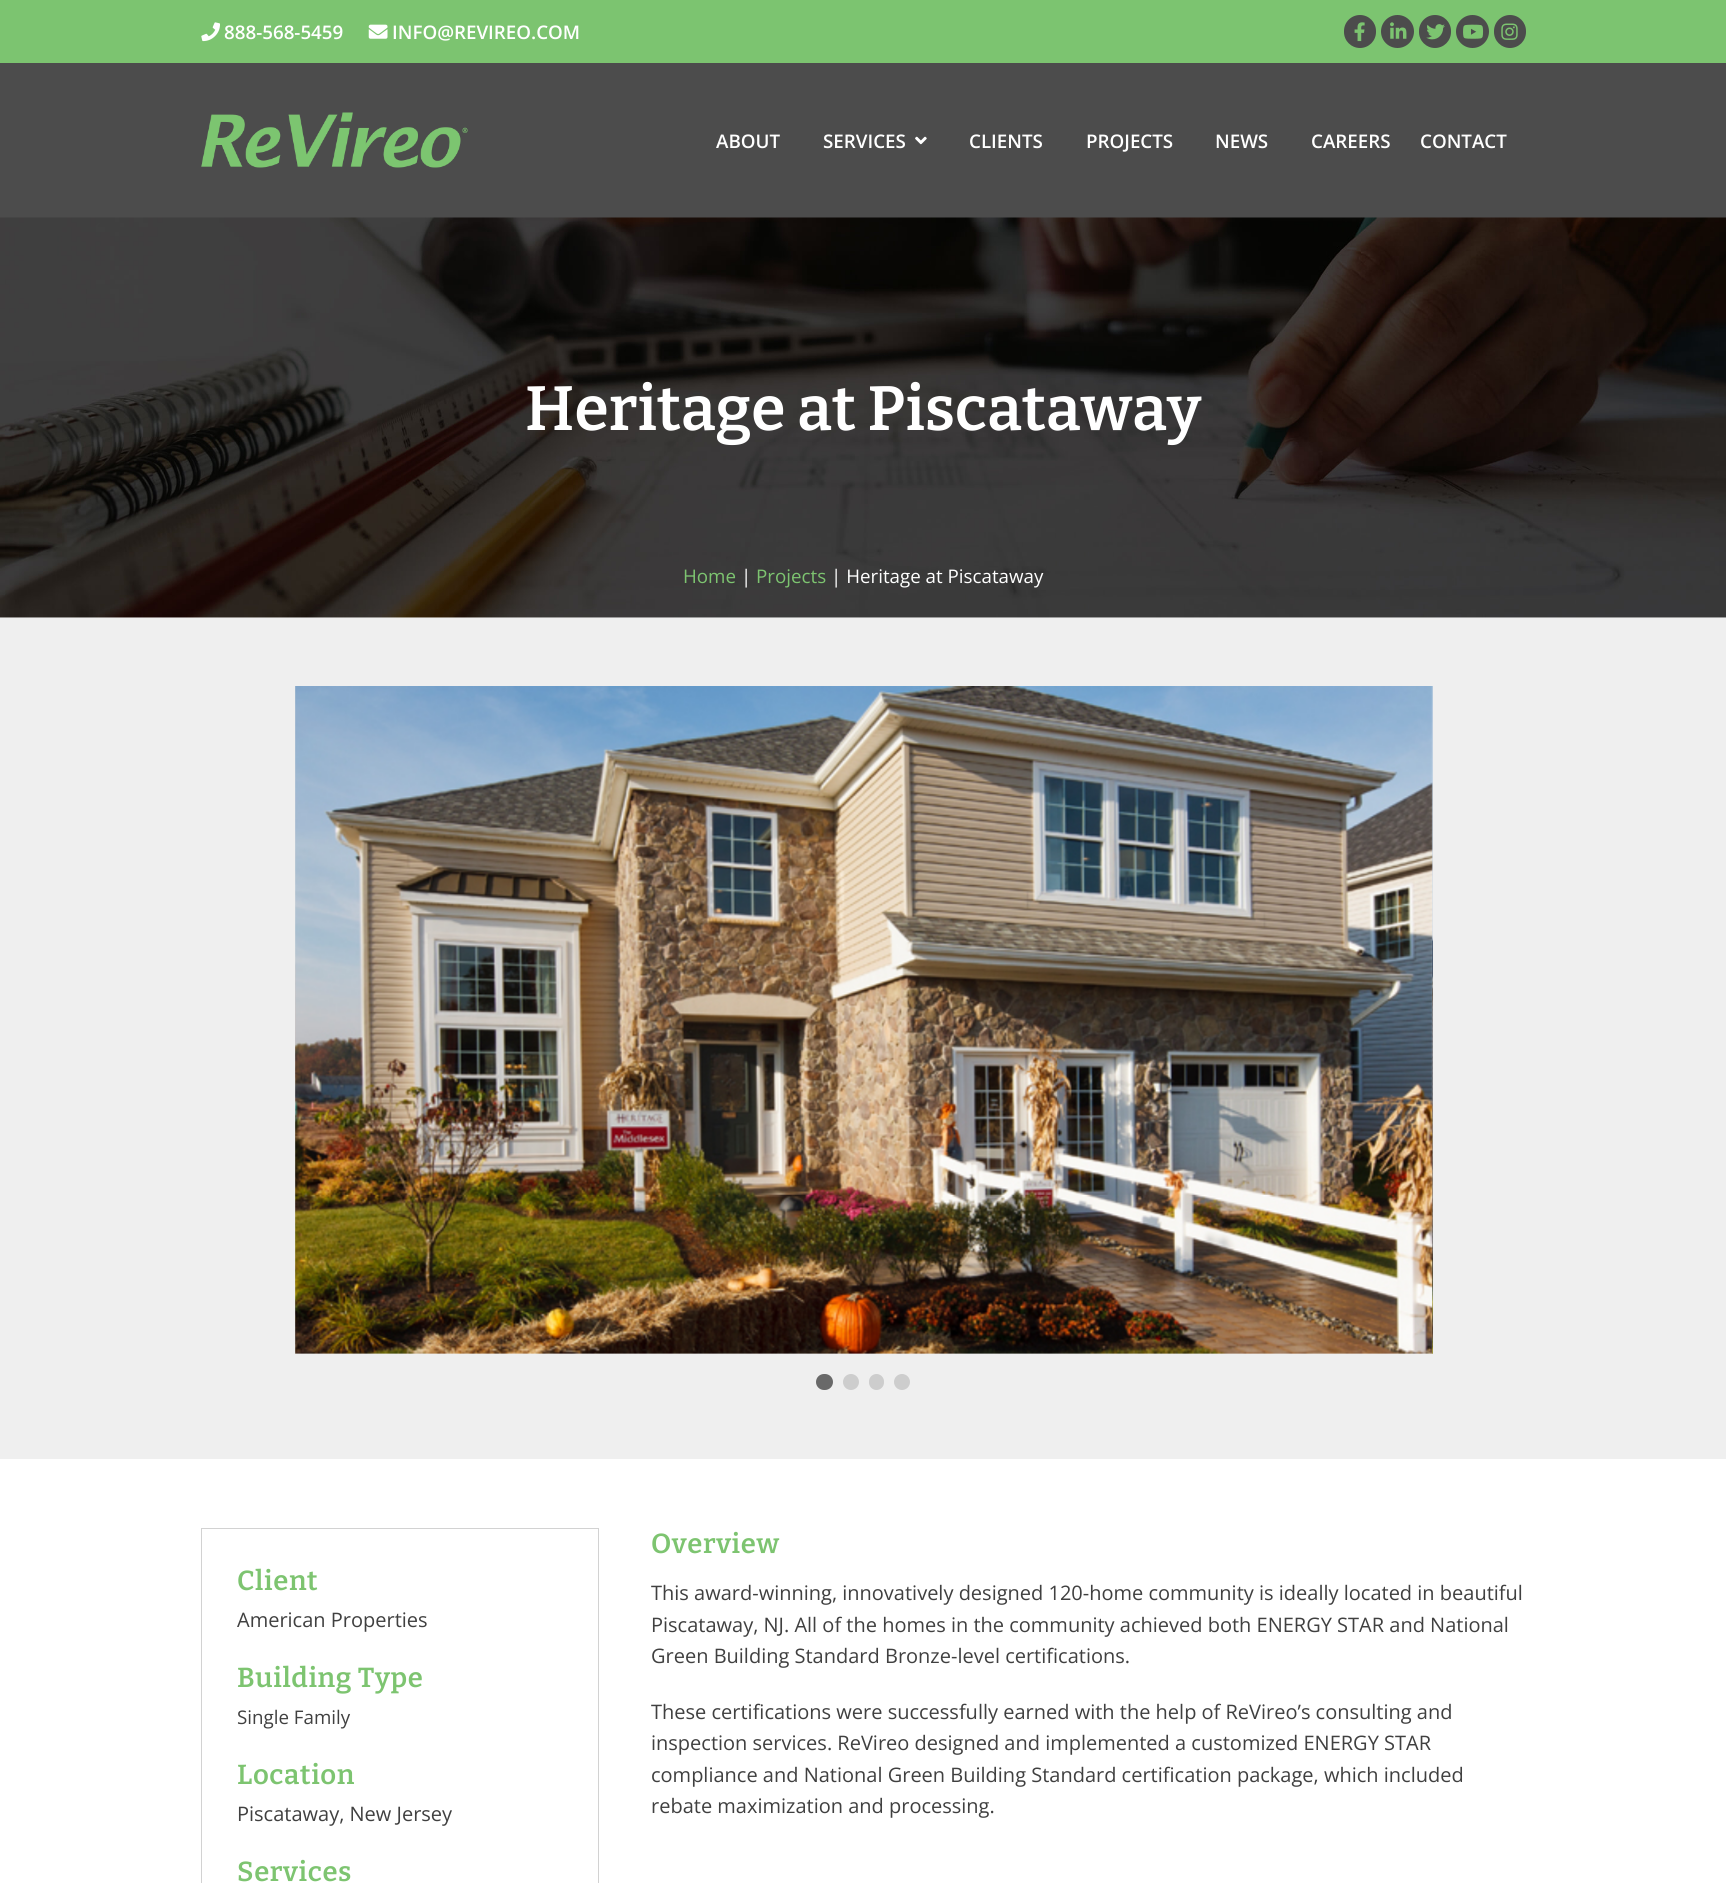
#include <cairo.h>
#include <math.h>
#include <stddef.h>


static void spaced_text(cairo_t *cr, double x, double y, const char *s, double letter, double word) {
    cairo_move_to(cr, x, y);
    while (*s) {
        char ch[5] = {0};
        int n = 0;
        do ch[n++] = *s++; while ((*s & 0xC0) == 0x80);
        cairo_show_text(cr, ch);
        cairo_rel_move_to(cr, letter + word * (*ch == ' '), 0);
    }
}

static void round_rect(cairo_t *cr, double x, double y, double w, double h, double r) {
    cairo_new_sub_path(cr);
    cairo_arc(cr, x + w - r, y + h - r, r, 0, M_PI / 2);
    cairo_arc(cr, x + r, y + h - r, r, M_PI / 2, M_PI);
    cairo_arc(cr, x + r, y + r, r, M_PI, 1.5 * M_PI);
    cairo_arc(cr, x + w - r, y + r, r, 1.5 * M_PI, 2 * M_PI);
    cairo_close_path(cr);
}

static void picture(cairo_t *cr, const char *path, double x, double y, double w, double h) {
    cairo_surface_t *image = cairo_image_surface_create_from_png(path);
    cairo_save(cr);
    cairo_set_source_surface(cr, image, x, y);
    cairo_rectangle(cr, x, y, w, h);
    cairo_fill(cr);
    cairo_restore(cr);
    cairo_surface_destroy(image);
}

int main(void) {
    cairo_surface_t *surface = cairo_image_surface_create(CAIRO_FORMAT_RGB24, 1726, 1883);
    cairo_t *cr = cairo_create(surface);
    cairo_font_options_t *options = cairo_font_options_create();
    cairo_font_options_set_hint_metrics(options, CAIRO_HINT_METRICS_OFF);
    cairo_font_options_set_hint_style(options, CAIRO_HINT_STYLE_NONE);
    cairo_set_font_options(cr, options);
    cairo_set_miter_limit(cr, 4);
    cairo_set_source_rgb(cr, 1, 1, 1);
    cairo_paint(cr);
    cairo_set_source_rgb(cr, 0.486, 0.769, 0.439);
    cairo_rectangle(cr, 0, 0, 1726, 63);
    cairo_fill(cr);
    picture(cr, "img1.png", 201, 22, 19, 20);
    cairo_select_font_face(cr, "Open Sans SemiBold", CAIRO_FONT_SLANT_NORMAL, CAIRO_FONT_WEIGHT_NORMAL);
    cairo_set_font_size(cr, 18.75);
    cairo_set_source_rgb(cr, 1, 1, 1);
    cairo_move_to(cr, 224, 39);
    cairo_show_text(cr, "888-568-5459");
    picture(cr, "img2.png", 368, 24, 20, 15);
    cairo_move_to(cr, 392, 39);
    cairo_show_text(cr, "INFO@REVIREO.COM");
    cairo_set_source_rgb(cr, 0.298, 0.298, 0.298);
    round_rect(cr, 1344, 15, 32, 33, 16);
    cairo_fill(cr);
    picture(cr, "img3.png", 1354, 22, 11, 20);
    cairo_arc(cr, 1397.5, 31.5, 16.5, 0, 2 * M_PI);
    cairo_fill(cr);
    picture(cr, "img4.png", 1390, 22, 17, 17);
    round_rect(cr, 1419, 15, 32, 33, 16);
    cairo_fill(cr);
    picture(cr, "img5.png", 1426, 24, 19, 16);
    cairo_arc(cr, 1472.5, 31.5, 16.5, 0, 2 * M_PI);
    cairo_fill(cr);
    picture(cr, "img6.png", 1463, 24, 21, 15);
    round_rect(cr, 1494, 15, 32, 33, 16);
    cairo_fill(cr);
    picture(cr, "img7.png", 1501, 23, 17, 17);
    cairo_rectangle(cr, 0, 63, 1726, 155);
    cairo_fill(cr);
    picture(cr, "img8.png", 201, 112, 267, 56);
    cairo_set_source_rgb(cr, 1, 1, 1);
    cairo_move_to(cr, 716, 148);
    cairo_show_text(cr, "ABOUT");
    cairo_move_to(cr, 823, 148);
    cairo_show_text(cr, "SERVICES");
    picture(cr, "img9.png", 915, 136, 12, 9);
    cairo_move_to(cr, 969, 148);
    cairo_show_text(cr, "CLIENTS");
    cairo_move_to(cr, 1086, 148);
    cairo_show_text(cr, "PROJECTS");
    cairo_move_to(cr, 1215, 148);
    cairo_show_text(cr, "NEWS");
    cairo_move_to(cr, 1311, 148);
    cairo_show_text(cr, "CAREERS");
    cairo_move_to(cr, 1420, 148);
    cairo_show_text(cr, "CONTACT");
    picture(cr, "img10.png", 0, 217, 1726, 401);
    cairo_select_font_face(cr, "Bitter SemiBold", CAIRO_FONT_SLANT_NORMAL, CAIRO_FONT_WEIGHT_NORMAL);
    cairo_set_font_size(cr, 62.5);
    cairo_move_to(cr, 525, 430);
    cairo_show_text(cr, "Heritage at Piscataway");
    cairo_select_font_face(cr, "Open Sans", CAIRO_FONT_SLANT_NORMAL, CAIRO_FONT_WEIGHT_NORMAL);
    cairo_set_font_size(cr, 18.75);
    cairo_set_source_rgb(cr, 0.49, 0.769, 0.439);
    cairo_move_to(cr, 683, 583);
    cairo_show_text(cr, "Home");
    cairo_set_source_rgb(cr, 1, 1, 1);
    cairo_move_to(cr, 741, 583);
    cairo_show_text(cr, "|");
    cairo_set_source_rgb(cr, 0.49, 0.769, 0.439);
    cairo_move_to(cr, 756, 583);
    cairo_show_text(cr, "Projects");
    cairo_set_source_rgb(cr, 1, 1, 1);
    cairo_move_to(cr, 831, 583);
    cairo_show_text(cr, "| Heritage at Piscataway");
    cairo_set_source_rgb(cr, 0.937, 0.937, 0.937);
    cairo_rectangle(cr, 0, 618, 1726, 841);
    cairo_fill(cr);
    picture(cr, "img11.png", 295, 686, 1, 668);
    picture(cr, "img12.png", 295, 686, 1138, 668);
    picture(cr, "img13.png", 1432, 686, 1, 668);
    cairo_set_source_rgb(cr, 0.412, 0.412, 0.412);
    round_rect(cr, 816, 1374, 17, 16, 8);
    cairo_fill(cr);
    cairo_set_source_rgb(cr, 0.804, 0.804, 0.804);
    cairo_arc(cr, 851, 1382, 8, 0, 2 * M_PI);
    cairo_fill(cr);
    round_rect(cr, 869, 1374, 15, 16, 7.5);
    cairo_fill(cr);
    cairo_arc(cr, 902, 1382, 8, 0, 2 * M_PI);
    cairo_fill(cr);
    cairo_rectangle(cr, 201.5, 1528.5, 397, 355);
    cairo_set_source_rgb(cr, 0.824, 0.824, 0.824);
    cairo_set_line_width(cr, 1);
    cairo_stroke(cr);
    cairo_select_font_face(cr, "Bitter SemiBold", CAIRO_FONT_SLANT_NORMAL, CAIRO_FONT_WEIGHT_NORMAL);
    cairo_set_font_size(cr, 27.5);
    cairo_set_source_rgb(cr, 0.49, 0.769, 0.439);
    spaced_text(cr, 237, 1590, "Client", 0.6, 0);
    cairo_select_font_face(cr, "Open Sans", CAIRO_FONT_SLANT_NORMAL, CAIRO_FONT_WEIGHT_NORMAL);
    cairo_set_font_size(cr, 20);
    cairo_set_source_rgb(cr, 0.251, 0.251, 0.251);
    cairo_move_to(cr, 237, 1627);
    cairo_show_text(cr, "American Properties");
    cairo_select_font_face(cr, "Bitter SemiBold", CAIRO_FONT_SLANT_NORMAL, CAIRO_FONT_WEIGHT_NORMAL);
    cairo_set_font_size(cr, 27.5);
    cairo_set_source_rgb(cr, 0.49, 0.769, 0.439);
    spaced_text(cr, 237, 1687, "Building Type", 0.6, 0);
    cairo_select_font_face(cr, "Open Sans", CAIRO_FONT_SLANT_NORMAL, CAIRO_FONT_WEIGHT_NORMAL);
    cairo_set_font_size(cr, 18.75);
    cairo_set_source_rgb(cr, 0.251, 0.251, 0.251);
    cairo_move_to(cr, 237, 1724);
    cairo_show_text(cr, "Single Family");
    cairo_select_font_face(cr, "Bitter SemiBold", CAIRO_FONT_SLANT_NORMAL, CAIRO_FONT_WEIGHT_NORMAL);
    cairo_set_font_size(cr, 27.5);
    cairo_set_source_rgb(cr, 0.49, 0.769, 0.439);
    spaced_text(cr, 237, 1784, "Location", 0.6, 0);
    cairo_select_font_face(cr, "Open Sans", CAIRO_FONT_SLANT_NORMAL, CAIRO_FONT_WEIGHT_NORMAL);
    cairo_set_font_size(cr, 20);
    cairo_set_source_rgb(cr, 0.251, 0.251, 0.251);
    cairo_move_to(cr, 237, 1821);
    cairo_show_text(cr, "Piscataway, New Jersey");
    cairo_select_font_face(cr, "Bitter SemiBold", CAIRO_FONT_SLANT_NORMAL, CAIRO_FONT_WEIGHT_NORMAL);
    cairo_set_font_size(cr, 27.5);
    cairo_set_source_rgb(cr, 0.49, 0.769, 0.439);
    spaced_text(cr, 237, 1881, "Services", 0.6, 0);
    spaced_text(cr, 651, 1553, "Overview", 0.6, 0);
    cairo_select_font_face(cr, "Open Sans", CAIRO_FONT_SLANT_NORMAL, CAIRO_FONT_WEIGHT_NORMAL);
    cairo_set_font_size(cr, 20);
    cairo_set_source_rgb(cr, 0.251, 0.251, 0.251);
    cairo_move_to(cr, 651, 1600);
    cairo_show_text(cr, "This award-winning, innovatively designed 120-home community is ideally located in beautiful");
    cairo_move_to(cr, 651, 1632);
    cairo_show_text(cr, "Piscataway, NJ. All of the homes in the community achieved both ENERGY STAR and National");
    cairo_move_to(cr, 651, 1663);
    cairo_show_text(cr, "Green Building Standard Bronze-level certifications.");
    cairo_move_to(cr, 651, 1719);
    cairo_show_text(cr, "These certifications were successfully earned with the help of ReVireo’s consulting and");
    cairo_move_to(cr, 651, 1750);
    cairo_show_text(cr, "inspection services. ReVireo designed and implemented a customized ENERGY STAR");
    cairo_move_to(cr, 651, 1782);
    cairo_show_text(cr, "compliance and National Green Building Standard certification package, which included");
    cairo_move_to(cr, 651, 1813);
    cairo_show_text(cr, "rebate maximization and processing.");
    cairo_surface_write_to_png(surface, "page.png");
    cairo_font_options_destroy(options);
    cairo_destroy(cr);
    cairo_surface_destroy(surface);
    return 0;
}
